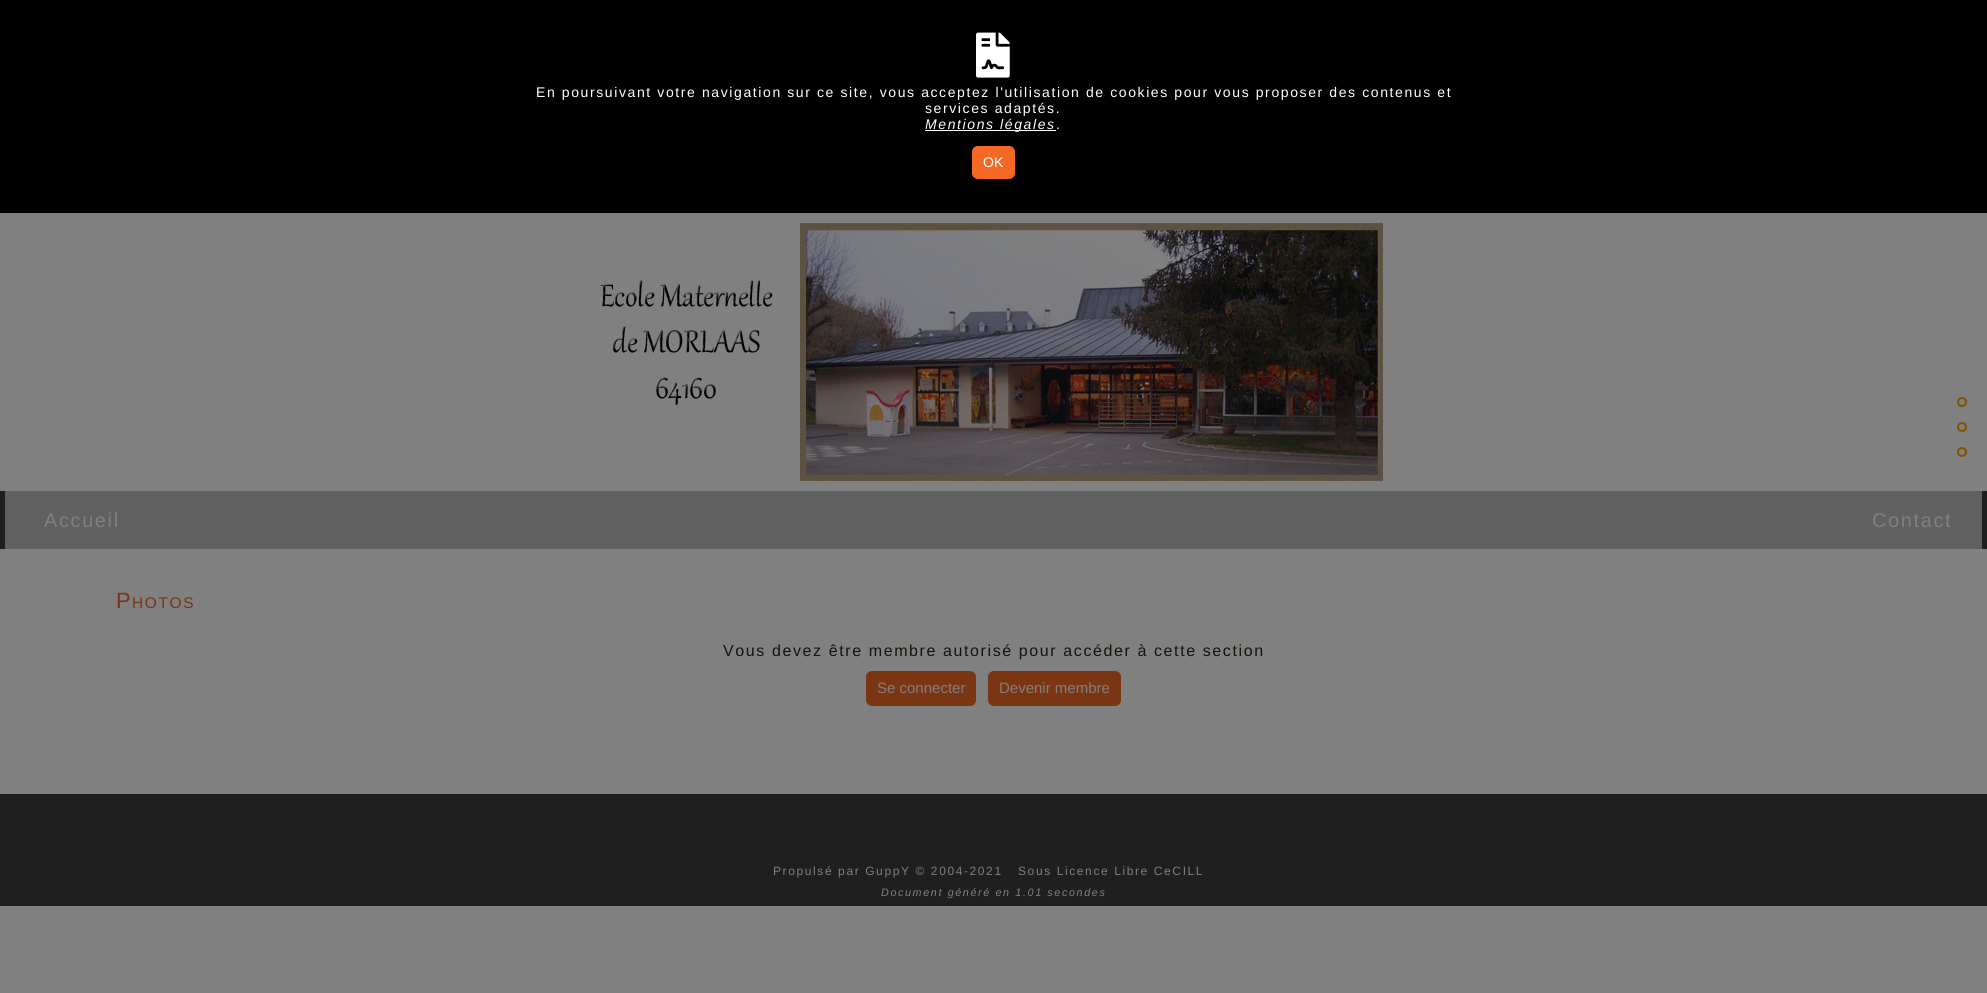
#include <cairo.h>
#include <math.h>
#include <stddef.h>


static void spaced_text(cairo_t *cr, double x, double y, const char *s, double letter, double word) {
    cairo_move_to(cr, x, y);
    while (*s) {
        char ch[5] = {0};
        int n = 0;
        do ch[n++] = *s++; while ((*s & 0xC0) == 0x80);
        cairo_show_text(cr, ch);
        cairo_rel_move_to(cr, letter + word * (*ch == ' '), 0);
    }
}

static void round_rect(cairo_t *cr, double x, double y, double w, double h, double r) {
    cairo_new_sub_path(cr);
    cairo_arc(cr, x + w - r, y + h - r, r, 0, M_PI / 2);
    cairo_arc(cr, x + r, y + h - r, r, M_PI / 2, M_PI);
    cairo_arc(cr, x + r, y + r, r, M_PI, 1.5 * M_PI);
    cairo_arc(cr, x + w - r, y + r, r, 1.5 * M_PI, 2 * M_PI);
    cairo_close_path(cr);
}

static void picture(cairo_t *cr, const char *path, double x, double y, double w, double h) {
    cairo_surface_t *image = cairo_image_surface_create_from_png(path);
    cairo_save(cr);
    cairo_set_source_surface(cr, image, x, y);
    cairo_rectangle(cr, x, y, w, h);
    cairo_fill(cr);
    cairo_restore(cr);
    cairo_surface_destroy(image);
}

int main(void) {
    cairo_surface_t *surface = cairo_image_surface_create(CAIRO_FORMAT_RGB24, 1987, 993);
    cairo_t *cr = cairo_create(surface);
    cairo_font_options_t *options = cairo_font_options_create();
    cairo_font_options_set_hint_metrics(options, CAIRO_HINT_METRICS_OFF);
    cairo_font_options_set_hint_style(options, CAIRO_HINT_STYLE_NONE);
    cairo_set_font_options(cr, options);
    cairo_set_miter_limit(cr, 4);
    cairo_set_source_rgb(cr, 0.502, 0.502, 0.502);
    cairo_paint(cr);
    cairo_set_source_rgb(cr, 0, 0, 0);
    cairo_rectangle(cr, 0, 0, 1987, 213);
    cairo_fill(cr);
    picture(cr, "img1.png", 976, 32, 34, 46);
    cairo_select_font_face(cr, "Liberation Sans", CAIRO_FONT_SLANT_NORMAL, CAIRO_FONT_WEIGHT_NORMAL);
    cairo_set_font_size(cr, 14);
    cairo_set_source_rgb(cr, 1, 1, 1);
    spaced_text(cr, 536, 97, "En poursuivant votre navigation sur ce site, vous acceptez l'utilisation de cookies pour vous proposer des contenus et", 1.6, 0);
    spaced_text(cr, 925, 113, "services adaptés.", 1.6, 0);
    cairo_rectangle(cr, 925, 130, 131, 1);
    cairo_fill(cr);
    cairo_select_font_face(cr, "Liberation Sans", CAIRO_FONT_SLANT_ITALIC, CAIRO_FONT_WEIGHT_NORMAL);
    spaced_text(cr, 925, 129, "Mentions légales", 1.6, 0);
    cairo_select_font_face(cr, "Liberation Sans", CAIRO_FONT_SLANT_NORMAL, CAIRO_FONT_WEIGHT_NORMAL);
    spaced_text(cr, 1056, 129, ".", 1.6, 0);
    cairo_set_source_rgb(cr, 0.957, 0.416, 0.145);
    round_rect(cr, 972.5, 146.5, 42, 32, 5.5);
    cairo_fill_preserve(cr);
    cairo_set_line_width(cr, 1);
    cairo_stroke(cr);
    cairo_set_source_rgb(cr, 1, 1, 1);
    cairo_move_to(cr, 983, 167);
    cairo_show_text(cr, "OK");
    cairo_new_path(cr);
    cairo_arc(cr, 1962, 402, 4, 0, 2 * M_PI);
    cairo_set_source_rgb(cr, 0.502, 0.325, 0);
    cairo_set_line_width(cr, 2);
    cairo_stroke(cr);
    cairo_arc(cr, 1962, 427, 4, 0, 2 * M_PI);
    cairo_stroke(cr);
    cairo_arc(cr, 1962, 452, 4, 0, 2 * M_PI);
    cairo_stroke(cr);
    cairo_set_source_rgb(cr, 0.122, 0.122, 0.122);
    cairo_rectangle(cr, 0, 491, 1987, 58);
    cairo_fill(cr);
    picture(cr, "img2.png", 600, 223, 783, 258);
    cairo_set_source_rgb(cr, 0.376, 0.376, 0.376);
    cairo_rectangle(cr, 5, 491, 1977, 58);
    cairo_fill(cr);
    cairo_set_font_size(cr, 20);
    cairo_set_source_rgb(cr, 0.502, 0.502, 0.502);
    spaced_text(cr, 44, 527, "Accueil", 1.6, 0);
    spaced_text(cr, 1872, 527, "Contact", 1.6, 0);
    cairo_set_font_size(cr, 22);
    cairo_set_source_rgb(cr, 0.478, 0.208, 0.075);
    spaced_text(cr, 116, 608, "P", 1.6, 0);
    cairo_set_font_size(cr, 15.5);
    spaced_text(cr, 132, 608, "HOTOS", 1.6, 0);
    cairo_set_font_size(cr, 16);
    cairo_set_source_rgb(cr, 0.09, 0.078, 0.043);
    spaced_text(cr, 723, 656, "Vous devez être membre autorisé pour accéder à cette section", 1.6, 0);
    cairo_set_source_rgb(cr, 0.478, 0.208, 0.075);
    round_rect(cr, 866.5, 671.5, 109, 34, 5.5);
    cairo_fill_preserve(cr);
    cairo_set_line_width(cr, 1);
    cairo_stroke(cr);
    cairo_set_font_size(cr, 15);
    cairo_set_source_rgb(cr, 0.502, 0.502, 0.502);
    cairo_move_to(cr, 877, 693);
    cairo_show_text(cr, "Se connecter");
    cairo_set_source_rgb(cr, 0.478, 0.208, 0.075);
    round_rect(cr, 988.5, 671.5, 132, 34, 5.5);
    cairo_fill_preserve(cr);
    cairo_stroke(cr);
    cairo_set_source_rgb(cr, 0.502, 0.502, 0.502);
    cairo_move_to(cr, 999, 693);
    cairo_show_text(cr, "Devenir membre");
    cairo_set_source_rgb(cr, 0.122, 0.122, 0.122);
    cairo_rectangle(cr, 0, 794, 1987, 112);
    cairo_fill(cr);
    cairo_set_font_size(cr, 12);
    cairo_set_source_rgb(cr, 0.502, 0.502, 0.502);
    spaced_text(cr, 773, 875, "Propulsé par GuppY © 2004-2021", 1.6, 0);
    spaced_text(cr, 1018, 875, "Sous Licence Libre CeCILL", 1.6, 0);
    cairo_select_font_face(cr, "Liberation Sans", CAIRO_FONT_SLANT_ITALIC, CAIRO_FONT_WEIGHT_NORMAL);
    cairo_set_font_size(cr, 10.8);
    spaced_text(cr, 881, 896, "Document généré en 1.01 secondes", 1.6, 0);
    cairo_surface_write_to_png(surface, "page.png");
    cairo_font_options_destroy(options);
    cairo_destroy(cr);
    cairo_surface_destroy(surface);
    return 0;
}
